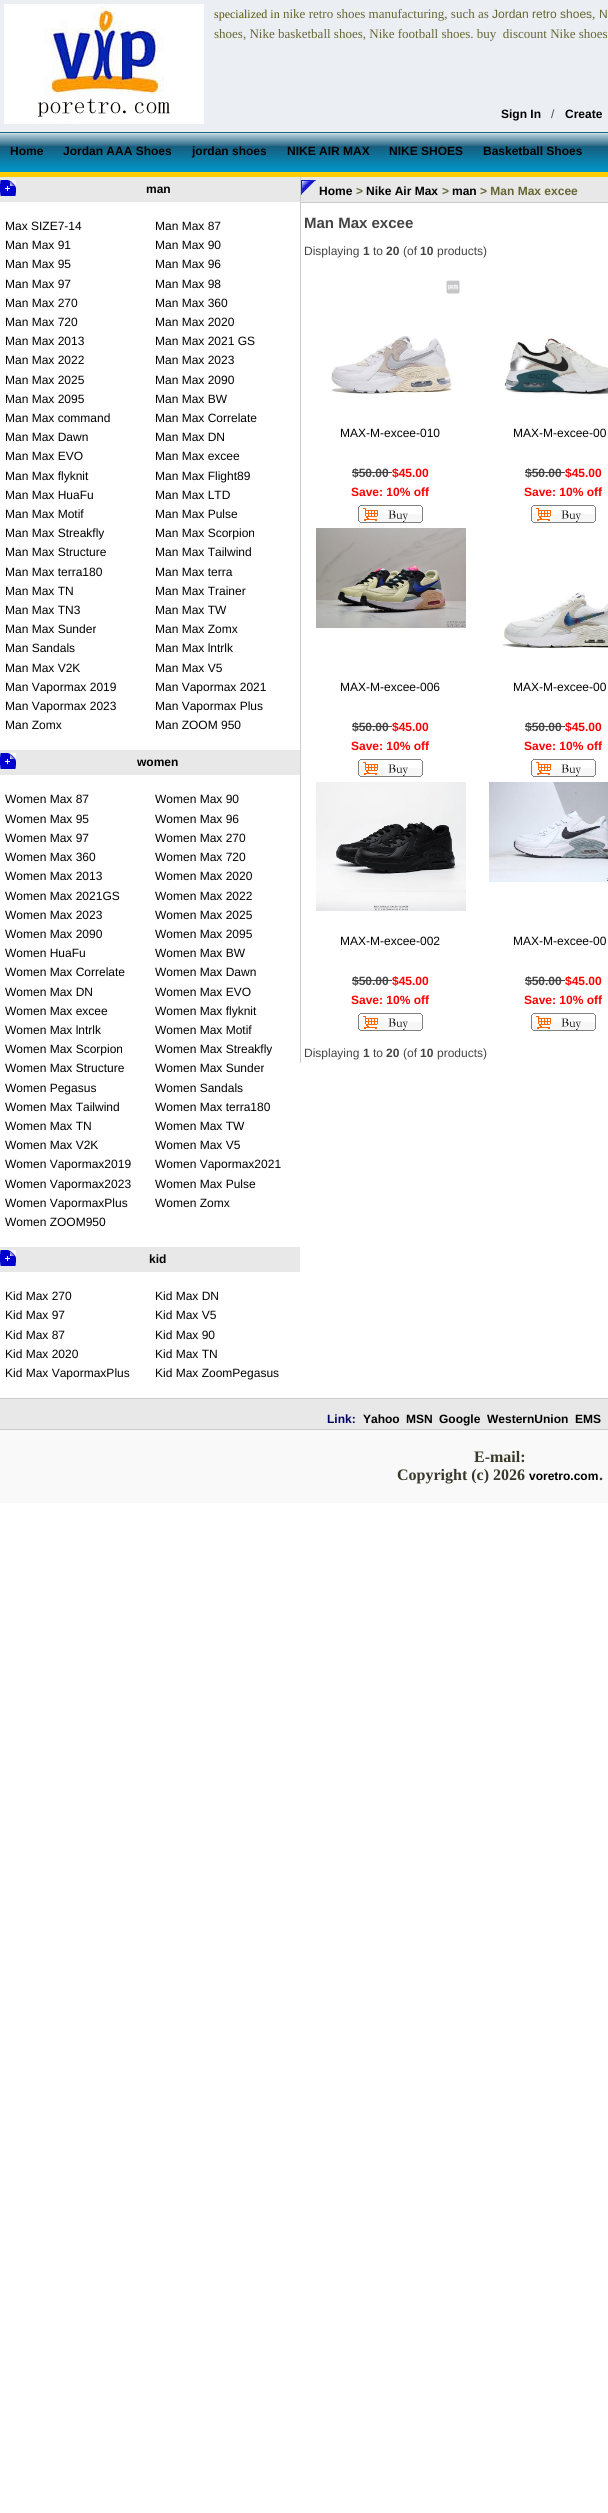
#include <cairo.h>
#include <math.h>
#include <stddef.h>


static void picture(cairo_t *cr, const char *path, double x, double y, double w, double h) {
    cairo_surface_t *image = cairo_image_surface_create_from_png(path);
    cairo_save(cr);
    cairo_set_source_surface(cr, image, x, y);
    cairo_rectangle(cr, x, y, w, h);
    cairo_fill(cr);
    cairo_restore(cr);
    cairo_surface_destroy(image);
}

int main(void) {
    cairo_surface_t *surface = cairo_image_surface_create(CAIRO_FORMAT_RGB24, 608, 2513);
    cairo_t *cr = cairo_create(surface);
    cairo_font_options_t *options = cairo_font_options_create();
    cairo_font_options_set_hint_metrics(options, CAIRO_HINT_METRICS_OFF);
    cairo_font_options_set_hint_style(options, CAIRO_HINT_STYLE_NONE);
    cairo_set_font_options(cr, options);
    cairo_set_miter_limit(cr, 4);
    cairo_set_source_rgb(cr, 1, 1, 1);
    cairo_paint(cr);
    cairo_set_source_rgb(cr, 0.918, 0.937, 0.957);
    cairo_rectangle(cr, 0, 0, 608, 132);
    cairo_fill(cr);
    picture(cr, "img1.png", 4, 4, 200, 120);
    cairo_select_font_face(cr, "Liberation Serif", CAIRO_FONT_SLANT_NORMAL, CAIRO_FONT_WEIGHT_NORMAL);
    cairo_set_font_size(cr, 12);
    cairo_set_source_rgb(cr, 0.333, 0.333, 0);
    cairo_move_to(cr, 214, 18);
    cairo_show_text(cr, "specialized in");
    cairo_set_font_size(cr, 13);
    cairo_set_source_rgb(cr, 0.4, 0.4, 0.2);
    cairo_move_to(cr, 283, 18);
    cairo_show_text(cr, "nike retro shoes manufacturing, such as");
    cairo_select_font_face(cr, "Liberation Sans", CAIRO_FONT_SLANT_NORMAL, CAIRO_FONT_WEIGHT_NORMAL);
    cairo_set_font_size(cr, 12);
    cairo_move_to(cr, 492, 18);
    cairo_show_text(cr, "Jordan retro shoes");
    cairo_select_font_face(cr, "Liberation Serif", CAIRO_FONT_SLANT_NORMAL, CAIRO_FONT_WEIGHT_NORMAL);
    cairo_set_font_size(cr, 13);
    cairo_move_to(cr, 592, 18);
    cairo_show_text(cr, ",");
    cairo_select_font_face(cr, "Liberation Sans", CAIRO_FONT_SLANT_NORMAL, CAIRO_FONT_WEIGHT_NORMAL);
    cairo_set_font_size(cr, 12);
    cairo_move_to(cr, 599, 18);
    cairo_show_text(cr, "N");
    cairo_select_font_face(cr, "Liberation Serif", CAIRO_FONT_SLANT_NORMAL, CAIRO_FONT_WEIGHT_NORMAL);
    cairo_set_font_size(cr, 13);
    cairo_move_to(cr, 214, 38);
    cairo_show_text(cr, "shoes, Nike basketball shoes, Nike football shoes. buy  discount Nike shoes");
    cairo_select_font_face(cr, "Liberation Sans", CAIRO_FONT_SLANT_NORMAL, CAIRO_FONT_WEIGHT_BOLD);
    cairo_set_font_size(cr, 12);
    cairo_set_source_rgb(cr, 0, 0, 0);
    cairo_move_to(cr, 501, 118);
    cairo_show_text(cr, "Sign In");
    cairo_select_font_face(cr, "Liberation Sans", CAIRO_FONT_SLANT_NORMAL, CAIRO_FONT_WEIGHT_NORMAL);
    cairo_set_source_rgb(cr, 0.267, 0.267, 0.267);
    cairo_move_to(cr, 551, 118);
    cairo_show_text(cr, "/");
    cairo_select_font_face(cr, "Liberation Sans", CAIRO_FONT_SLANT_NORMAL, CAIRO_FONT_WEIGHT_BOLD);
    cairo_set_source_rgb(cr, 0, 0, 0);
    cairo_move_to(cr, 565, 118);
    cairo_show_text(cr, "Create");
    picture(cr, "img2.png", 0, 132, 608, 40);
    cairo_move_to(cr, 10, 155);
    cairo_show_text(cr, "Home");
    cairo_move_to(cr, 63, 155);
    cairo_show_text(cr, "Jordan AAA Shoes");
    cairo_move_to(cr, 192, 155);
    cairo_show_text(cr, "jordan shoes");
    cairo_move_to(cr, 287, 155);
    cairo_show_text(cr, "NIKE AIR MAX");
    cairo_move_to(cr, 389, 155);
    cairo_show_text(cr, "NIKE SHOES");
    cairo_move_to(cr, 483, 155);
    cairo_show_text(cr, "Basketball Shoes");
    cairo_set_source_rgb(cr, 0.992, 0.8, 0.012);
    cairo_rectangle(cr, 0, 172, 608, 5);
    cairo_fill(cr);
    cairo_set_source_rgb(cr, 0.91, 0.91, 0.91);
    cairo_rectangle(cr, 0, 177, 300, 25);
    cairo_fill(cr);
    picture(cr, "img3.png", 0, 180, 16, 16);
    cairo_set_source_rgb(cr, 0, 0, 0);
    cairo_move_to(cr, 146, 193);
    cairo_show_text(cr, "man");
    cairo_select_font_face(cr, "Liberation Sans", CAIRO_FONT_SLANT_NORMAL, CAIRO_FONT_WEIGHT_NORMAL);
    cairo_move_to(cr, 5, 230);
    cairo_show_text(cr, "Max SIZE7-14");
    cairo_move_to(cr, 155, 230);
    cairo_show_text(cr, "Man Max 87");
    cairo_move_to(cr, 5, 249);
    cairo_show_text(cr, "Man Max 91");
    cairo_move_to(cr, 155, 249);
    cairo_show_text(cr, "Man Max 90");
    cairo_move_to(cr, 5, 268);
    cairo_show_text(cr, "Man Max 95");
    cairo_move_to(cr, 155, 268);
    cairo_show_text(cr, "Man Max 96");
    cairo_move_to(cr, 5, 288);
    cairo_show_text(cr, "Man Max 97");
    cairo_move_to(cr, 155, 288);
    cairo_show_text(cr, "Man Max 98");
    cairo_move_to(cr, 5, 307);
    cairo_show_text(cr, "Man Max 270");
    cairo_move_to(cr, 155, 307);
    cairo_show_text(cr, "Man Max 360");
    cairo_move_to(cr, 5, 326);
    cairo_show_text(cr, "Man Max 720");
    cairo_move_to(cr, 155, 326);
    cairo_show_text(cr, "Man Max 2020");
    cairo_move_to(cr, 5, 345);
    cairo_show_text(cr, "Man Max 2013");
    cairo_move_to(cr, 155, 345);
    cairo_show_text(cr, "Man Max 2021 GS");
    cairo_move_to(cr, 5, 364);
    cairo_show_text(cr, "Man Max 2022");
    cairo_move_to(cr, 155, 364);
    cairo_show_text(cr, "Man Max 2023");
    cairo_move_to(cr, 5, 384);
    cairo_show_text(cr, "Man Max 2025");
    cairo_move_to(cr, 155, 384);
    cairo_show_text(cr, "Man Max 2090");
    cairo_move_to(cr, 5, 403);
    cairo_show_text(cr, "Man Max 2095");
    cairo_move_to(cr, 155, 403);
    cairo_show_text(cr, "Man Max BW");
    cairo_move_to(cr, 5, 422);
    cairo_show_text(cr, "Man Max command");
    cairo_move_to(cr, 155, 422);
    cairo_show_text(cr, "Man Max Correlate");
    cairo_move_to(cr, 5, 441);
    cairo_show_text(cr, "Man Max Dawn");
    cairo_move_to(cr, 155, 441);
    cairo_show_text(cr, "Man Max DN");
    cairo_move_to(cr, 5, 460);
    cairo_show_text(cr, "Man Max EVO");
    cairo_move_to(cr, 155, 460);
    cairo_show_text(cr, "Man Max excee");
    cairo_move_to(cr, 5, 480);
    cairo_show_text(cr, "Man Max flyknit");
    cairo_move_to(cr, 155, 480);
    cairo_show_text(cr, "Man Max Flight89");
    cairo_move_to(cr, 5, 499);
    cairo_show_text(cr, "Man Max HuaFu");
    cairo_move_to(cr, 155, 499);
    cairo_show_text(cr, "Man Max LTD");
    cairo_move_to(cr, 5, 518);
    cairo_show_text(cr, "Man Max Motif");
    cairo_move_to(cr, 155, 518);
    cairo_show_text(cr, "Man Max Pulse");
    cairo_move_to(cr, 5, 537);
    cairo_show_text(cr, "Man Max Streakfly");
    cairo_move_to(cr, 155, 537);
    cairo_show_text(cr, "Man Max Scorpion");
    cairo_move_to(cr, 5, 556);
    cairo_show_text(cr, "Man Max Structure");
    cairo_move_to(cr, 155, 556);
    cairo_show_text(cr, "Man Max Tailwind");
    cairo_move_to(cr, 5, 576);
    cairo_show_text(cr, "Man Max terra180");
    cairo_move_to(cr, 155, 576);
    cairo_show_text(cr, "Man Max terra");
    cairo_move_to(cr, 5, 595);
    cairo_show_text(cr, "Man Max TN");
    cairo_move_to(cr, 155, 595);
    cairo_show_text(cr, "Man Max Trainer");
    cairo_move_to(cr, 5, 614);
    cairo_show_text(cr, "Man Max TN3");
    cairo_move_to(cr, 155, 614);
    cairo_show_text(cr, "Man Max TW");
    cairo_move_to(cr, 5, 633);
    cairo_show_text(cr, "Man Max Sunder");
    cairo_move_to(cr, 155, 633);
    cairo_show_text(cr, "Man Max Zomx");
    cairo_move_to(cr, 5, 652);
    cairo_show_text(cr, "Man Sandals");
    cairo_move_to(cr, 155, 652);
    cairo_show_text(cr, "Man Max lntrlk");
    cairo_move_to(cr, 5, 672);
    cairo_show_text(cr, "Man Max V2K");
    cairo_move_to(cr, 155, 672);
    cairo_show_text(cr, "Man Max V5");
    cairo_move_to(cr, 5, 691);
    cairo_show_text(cr, "Man Vapormax 2019");
    cairo_move_to(cr, 155, 691);
    cairo_show_text(cr, "Man Vapormax 2021");
    cairo_move_to(cr, 5, 710);
    cairo_show_text(cr, "Man Vapormax 2023");
    cairo_move_to(cr, 155, 710);
    cairo_show_text(cr, "Man Vapormax Plus");
    cairo_move_to(cr, 5, 729);
    cairo_show_text(cr, "Man Zomx");
    cairo_move_to(cr, 155, 729);
    cairo_show_text(cr, "Man ZOOM 950");
    cairo_set_source_rgb(cr, 0.91, 0.91, 0.91);
    cairo_rectangle(cr, 0, 750, 300, 25);
    cairo_fill(cr);
    picture(cr, "img3.png", 0, 753, 16, 16);
    cairo_select_font_face(cr, "Liberation Sans", CAIRO_FONT_SLANT_NORMAL, CAIRO_FONT_WEIGHT_BOLD);
    cairo_set_source_rgb(cr, 0, 0, 0);
    cairo_move_to(cr, 137, 766);
    cairo_show_text(cr, "women");
    cairo_select_font_face(cr, "Liberation Sans", CAIRO_FONT_SLANT_NORMAL, CAIRO_FONT_WEIGHT_NORMAL);
    cairo_move_to(cr, 5, 803);
    cairo_show_text(cr, "Women Max 87");
    cairo_move_to(cr, 155, 803);
    cairo_show_text(cr, "Women Max 90");
    cairo_move_to(cr, 5, 823);
    cairo_show_text(cr, "Women Max 95");
    cairo_move_to(cr, 155, 823);
    cairo_show_text(cr, "Women Max 96");
    cairo_move_to(cr, 5, 842);
    cairo_show_text(cr, "Women Max 97");
    cairo_move_to(cr, 155, 842);
    cairo_show_text(cr, "Women Max 270");
    cairo_move_to(cr, 5, 861);
    cairo_show_text(cr, "Women Max 360");
    cairo_move_to(cr, 155, 861);
    cairo_show_text(cr, "Women Max 720");
    cairo_move_to(cr, 5, 880);
    cairo_show_text(cr, "Women Max 2013");
    cairo_move_to(cr, 155, 880);
    cairo_show_text(cr, "Women Max 2020");
    cairo_move_to(cr, 5, 900);
    cairo_show_text(cr, "Women Max 2021GS");
    cairo_move_to(cr, 155, 900);
    cairo_show_text(cr, "Women Max 2022");
    cairo_move_to(cr, 5, 919);
    cairo_show_text(cr, "Women Max 2023");
    cairo_move_to(cr, 155, 919);
    cairo_show_text(cr, "Women Max 2025");
    cairo_move_to(cr, 5, 938);
    cairo_show_text(cr, "Women Max 2090");
    cairo_move_to(cr, 155, 938);
    cairo_show_text(cr, "Women Max 2095");
    cairo_move_to(cr, 5, 957);
    cairo_show_text(cr, "Women HuaFu");
    cairo_move_to(cr, 155, 957);
    cairo_show_text(cr, "Women Max BW");
    cairo_move_to(cr, 5, 976);
    cairo_show_text(cr, "Women Max Correlate");
    cairo_move_to(cr, 155, 976);
    cairo_show_text(cr, "Women Max Dawn");
    cairo_move_to(cr, 5, 996);
    cairo_show_text(cr, "Women Max DN");
    cairo_move_to(cr, 155, 996);
    cairo_show_text(cr, "Women Max EVO");
    cairo_move_to(cr, 5, 1015);
    cairo_show_text(cr, "Women Max excee");
    cairo_move_to(cr, 155, 1015);
    cairo_show_text(cr, "Women Max flyknit");
    cairo_move_to(cr, 5, 1034);
    cairo_show_text(cr, "Women Max lntrlk");
    cairo_move_to(cr, 155, 1034);
    cairo_show_text(cr, "Women Max Motif");
    cairo_move_to(cr, 5, 1053);
    cairo_show_text(cr, "Women Max Scorpion");
    cairo_move_to(cr, 155, 1053);
    cairo_show_text(cr, "Women Max Streakfly");
    cairo_move_to(cr, 5, 1072);
    cairo_show_text(cr, "Women Max Structure");
    cairo_move_to(cr, 155, 1072);
    cairo_show_text(cr, "Women Max Sunder");
    cairo_move_to(cr, 5, 1092);
    cairo_show_text(cr, "Women Pegasus");
    cairo_move_to(cr, 155, 1092);
    cairo_show_text(cr, "Women Sandals");
    cairo_move_to(cr, 5, 1111);
    cairo_show_text(cr, "Women Max Tailwind");
    cairo_move_to(cr, 155, 1111);
    cairo_show_text(cr, "Women Max terra180");
    cairo_move_to(cr, 5, 1130);
    cairo_show_text(cr, "Women Max TN");
    cairo_move_to(cr, 155, 1130);
    cairo_show_text(cr, "Women Max TW");
    cairo_move_to(cr, 5, 1149);
    cairo_show_text(cr, "Women Max V2K");
    cairo_move_to(cr, 155, 1149);
    cairo_show_text(cr, "Women Max V5");
    cairo_move_to(cr, 5, 1168);
    cairo_show_text(cr, "Women Vapormax2019");
    cairo_move_to(cr, 155, 1168);
    cairo_show_text(cr, "Women Vapormax2021");
    cairo_move_to(cr, 5, 1188);
    cairo_show_text(cr, "Women Vapormax2023");
    cairo_move_to(cr, 155, 1188);
    cairo_show_text(cr, "Women Max Pulse");
    cairo_move_to(cr, 5, 1207);
    cairo_show_text(cr, "Women VapormaxPlus");
    cairo_move_to(cr, 155, 1207);
    cairo_show_text(cr, "Women Zomx");
    cairo_move_to(cr, 5, 1226);
    cairo_show_text(cr, "Women ZOOM950");
    cairo_set_source_rgb(cr, 0.91, 0.91, 0.91);
    cairo_rectangle(cr, 0, 1247, 300, 25);
    cairo_fill(cr);
    picture(cr, "img3.png", 0, 1250, 16, 16);
    cairo_select_font_face(cr, "Liberation Sans", CAIRO_FONT_SLANT_NORMAL, CAIRO_FONT_WEIGHT_BOLD);
    cairo_set_source_rgb(cr, 0, 0, 0);
    cairo_move_to(cr, 149, 1263);
    cairo_show_text(cr, "kid");
    cairo_select_font_face(cr, "Liberation Sans", CAIRO_FONT_SLANT_NORMAL, CAIRO_FONT_WEIGHT_NORMAL);
    cairo_move_to(cr, 5, 1300);
    cairo_show_text(cr, "Kid Max 270");
    cairo_move_to(cr, 155, 1300);
    cairo_show_text(cr, "Kid Max DN");
    cairo_move_to(cr, 5, 1319);
    cairo_show_text(cr, "Kid Max 97");
    cairo_move_to(cr, 155, 1319);
    cairo_show_text(cr, "Kid Max V5");
    cairo_move_to(cr, 5, 1339);
    cairo_show_text(cr, "Kid Max 87");
    cairo_move_to(cr, 155, 1339);
    cairo_show_text(cr, "Kid Max 90");
    cairo_move_to(cr, 5, 1358);
    cairo_show_text(cr, "Kid Max 2020");
    cairo_move_to(cr, 155, 1358);
    cairo_show_text(cr, "Kid Max TN");
    cairo_move_to(cr, 5, 1377);
    cairo_show_text(cr, "Kid Max VapormaxPlus");
    cairo_move_to(cr, 155, 1377);
    cairo_show_text(cr, "Kid Max ZoomPegasus");
    cairo_set_source_rgb(cr, 0.8, 0.8, 0.8);
    cairo_rectangle(cr, 300, 177, 1, 886);
    cairo_fill(cr);
    cairo_set_source_rgb(cr, 0.91, 0.91, 0.91);
    cairo_rectangle(cr, 301, 177, 307, 25);
    cairo_fill(cr);
    cairo_set_source_rgb(cr, 0.8, 0.8, 0.8);
    cairo_rectangle(cr, 301, 202, 307, 1);
    cairo_fill(cr);
    picture(cr, "img4.png", 301, 180, 15, 15);
    cairo_select_font_face(cr, "Liberation Sans", CAIRO_FONT_SLANT_NORMAL, CAIRO_FONT_WEIGHT_BOLD);
    cairo_set_source_rgb(cr, 0, 0, 0);
    cairo_move_to(cr, 319, 195);
    cairo_show_text(cr, "Home");
    cairo_set_source_rgb(cr, 0.4, 0.4, 0.2);
    cairo_move_to(cr, 356, 195);
    cairo_show_text(cr, ">");
    cairo_set_source_rgb(cr, 0, 0, 0);
    cairo_move_to(cr, 366, 195);
    cairo_show_text(cr, "Nike Air Max");
    cairo_set_source_rgb(cr, 0.4, 0.4, 0.2);
    cairo_move_to(cr, 442, 195);
    cairo_show_text(cr, ">");
    cairo_set_source_rgb(cr, 0, 0, 0);
    cairo_move_to(cr, 452, 195);
    cairo_show_text(cr, "man");
    cairo_set_source_rgb(cr, 0.4, 0.4, 0.2);
    cairo_move_to(cr, 480, 195);
    cairo_show_text(cr, "> Man Max excee");
    cairo_set_font_size(cr, 15);
    cairo_set_source_rgb(cr, 0.267, 0.267, 0.267);
    cairo_move_to(cr, 304, 228);
    cairo_show_text(cr, "Man Max excee");
    cairo_select_font_face(cr, "Liberation Sans", CAIRO_FONT_SLANT_NORMAL, CAIRO_FONT_WEIGHT_NORMAL);
    cairo_set_font_size(cr, 12);
    cairo_move_to(cr, 304, 255);
    cairo_show_text(cr, "Displaying");
    cairo_select_font_face(cr, "Liberation Sans", CAIRO_FONT_SLANT_NORMAL, CAIRO_FONT_WEIGHT_BOLD);
    cairo_move_to(cr, 363, 255);
    cairo_show_text(cr, "1");
    cairo_select_font_face(cr, "Liberation Sans", CAIRO_FONT_SLANT_NORMAL, CAIRO_FONT_WEIGHT_NORMAL);
    cairo_move_to(cr, 373, 255);
    cairo_show_text(cr, "to");
    cairo_select_font_face(cr, "Liberation Sans", CAIRO_FONT_SLANT_NORMAL, CAIRO_FONT_WEIGHT_BOLD);
    cairo_move_to(cr, 386, 255);
    cairo_show_text(cr, "20");
    cairo_select_font_face(cr, "Liberation Sans", CAIRO_FONT_SLANT_NORMAL, CAIRO_FONT_WEIGHT_NORMAL);
    cairo_move_to(cr, 403, 255);
    cairo_show_text(cr, "(of");
    cairo_select_font_face(cr, "Liberation Sans", CAIRO_FONT_SLANT_NORMAL, CAIRO_FONT_WEIGHT_BOLD);
    cairo_move_to(cr, 420, 255);
    cairo_show_text(cr, "10");
    cairo_select_font_face(cr, "Liberation Sans", CAIRO_FONT_SLANT_NORMAL, CAIRO_FONT_WEIGHT_NORMAL);
    cairo_move_to(cr, 437, 255);
    cairo_show_text(cr, "products)");
    picture(cr, "img5.png", 331, 280, 129, 114);
    cairo_set_source_rgb(cr, 0, 0, 0);
    cairo_move_to(cr, 340, 437);
    cairo_show_text(cr, "MAX-M-excee-010");
    cairo_select_font_face(cr, "Liberation Sans", CAIRO_FONT_SLANT_NORMAL, CAIRO_FONT_WEIGHT_BOLD);
    cairo_set_source_rgb(cr, 0.267, 0.267, 0.267);
    cairo_move_to(cr, 352, 477);
    cairo_show_text(cr, "$50.00");
    cairo_rectangle(cr, 352, 472, 40, 1);
    cairo_fill(cr);
    cairo_set_source_rgb(cr, 1, 0, 0);
    cairo_move_to(cr, 392, 477);
    cairo_show_text(cr, "$45.00");
    cairo_move_to(cr, 351, 496);
    cairo_show_text(cr, "Save: 10% off");
    picture(cr, "img6.png", 358, 505, 65, 18);
    picture(cr, "img7.png", 504, 337, 104, 58);
    cairo_select_font_face(cr, "Liberation Sans", CAIRO_FONT_SLANT_NORMAL, CAIRO_FONT_WEIGHT_NORMAL);
    cairo_set_source_rgb(cr, 0, 0, 0);
    cairo_move_to(cr, 513, 437);
    cairo_show_text(cr, "MAX-M-excee-00");
    cairo_select_font_face(cr, "Liberation Sans", CAIRO_FONT_SLANT_NORMAL, CAIRO_FONT_WEIGHT_BOLD);
    cairo_set_source_rgb(cr, 0.267, 0.267, 0.267);
    cairo_move_to(cr, 525, 477);
    cairo_show_text(cr, "$50.00");
    cairo_rectangle(cr, 525, 472, 40, 1);
    cairo_fill(cr);
    cairo_set_source_rgb(cr, 1, 0, 0);
    cairo_move_to(cr, 565, 477);
    cairo_show_text(cr, "$45.00");
    cairo_move_to(cr, 524, 496);
    cairo_show_text(cr, "Save: 10% off");
    picture(cr, "img6.png", 531, 505, 65, 18);
    picture(cr, "img8.png", 316, 528, 150, 100);
    cairo_select_font_face(cr, "Liberation Sans", CAIRO_FONT_SLANT_NORMAL, CAIRO_FONT_WEIGHT_NORMAL);
    cairo_set_source_rgb(cr, 0, 0, 0);
    cairo_move_to(cr, 340, 691);
    cairo_show_text(cr, "MAX-M-excee-006");
    cairo_select_font_face(cr, "Liberation Sans", CAIRO_FONT_SLANT_NORMAL, CAIRO_FONT_WEIGHT_BOLD);
    cairo_set_source_rgb(cr, 0.267, 0.267, 0.267);
    cairo_move_to(cr, 352, 731);
    cairo_show_text(cr, "$50.00");
    cairo_rectangle(cr, 352, 726, 40, 1);
    cairo_fill(cr);
    cairo_set_source_rgb(cr, 1, 0, 0);
    cairo_move_to(cr, 392, 731);
    cairo_show_text(cr, "$45.00");
    cairo_move_to(cr, 351, 750);
    cairo_show_text(cr, "Save: 10% off");
    picture(cr, "img6.png", 358, 759, 65, 18);
    picture(cr, "img9.png", 502, 592, 106, 57);
    cairo_select_font_face(cr, "Liberation Sans", CAIRO_FONT_SLANT_NORMAL, CAIRO_FONT_WEIGHT_NORMAL);
    cairo_set_source_rgb(cr, 0, 0, 0);
    cairo_move_to(cr, 513, 691);
    cairo_show_text(cr, "MAX-M-excee-00");
    cairo_select_font_face(cr, "Liberation Sans", CAIRO_FONT_SLANT_NORMAL, CAIRO_FONT_WEIGHT_BOLD);
    cairo_set_source_rgb(cr, 0.267, 0.267, 0.267);
    cairo_move_to(cr, 525, 731);
    cairo_show_text(cr, "$50.00");
    cairo_rectangle(cr, 525, 726, 40, 1);
    cairo_fill(cr);
    cairo_set_source_rgb(cr, 1, 0, 0);
    cairo_move_to(cr, 565, 731);
    cairo_show_text(cr, "$45.00");
    cairo_move_to(cr, 524, 750);
    cairo_show_text(cr, "Save: 10% off");
    picture(cr, "img6.png", 531, 759, 65, 18);
    picture(cr, "img10.png", 316, 782, 150, 129);
    cairo_select_font_face(cr, "Liberation Sans", CAIRO_FONT_SLANT_NORMAL, CAIRO_FONT_WEIGHT_NORMAL);
    cairo_set_source_rgb(cr, 0, 0, 0);
    cairo_move_to(cr, 340, 945);
    cairo_show_text(cr, "MAX-M-excee-002");
    cairo_select_font_face(cr, "Liberation Sans", CAIRO_FONT_SLANT_NORMAL, CAIRO_FONT_WEIGHT_BOLD);
    cairo_set_source_rgb(cr, 0.267, 0.267, 0.267);
    cairo_move_to(cr, 352, 985);
    cairo_show_text(cr, "$50.00");
    cairo_rectangle(cr, 352, 980, 40, 1);
    cairo_fill(cr);
    cairo_set_source_rgb(cr, 1, 0, 0);
    cairo_move_to(cr, 392, 985);
    cairo_show_text(cr, "$45.00");
    cairo_move_to(cr, 351, 1004);
    cairo_show_text(cr, "Save: 10% off");
    picture(cr, "img6.png", 358, 1013, 65, 18);
    picture(cr, "img11.png", 489, 782, 119, 100);
    cairo_select_font_face(cr, "Liberation Sans", CAIRO_FONT_SLANT_NORMAL, CAIRO_FONT_WEIGHT_NORMAL);
    cairo_set_source_rgb(cr, 0, 0, 0);
    cairo_move_to(cr, 513, 945);
    cairo_show_text(cr, "MAX-M-excee-00");
    cairo_select_font_face(cr, "Liberation Sans", CAIRO_FONT_SLANT_NORMAL, CAIRO_FONT_WEIGHT_BOLD);
    cairo_set_source_rgb(cr, 0.267, 0.267, 0.267);
    cairo_move_to(cr, 525, 985);
    cairo_show_text(cr, "$50.00");
    cairo_rectangle(cr, 525, 980, 40, 1);
    cairo_fill(cr);
    cairo_set_source_rgb(cr, 1, 0, 0);
    cairo_move_to(cr, 565, 985);
    cairo_show_text(cr, "$45.00");
    cairo_move_to(cr, 524, 1004);
    cairo_show_text(cr, "Save: 10% off");
    picture(cr, "img6.png", 531, 1013, 65, 18);
    cairo_select_font_face(cr, "Liberation Sans", CAIRO_FONT_SLANT_NORMAL, CAIRO_FONT_WEIGHT_NORMAL);
    cairo_set_source_rgb(cr, 0.267, 0.267, 0.267);
    cairo_move_to(cr, 304, 1057);
    cairo_show_text(cr, "Displaying");
    cairo_select_font_face(cr, "Liberation Sans", CAIRO_FONT_SLANT_NORMAL, CAIRO_FONT_WEIGHT_BOLD);
    cairo_move_to(cr, 363, 1057);
    cairo_show_text(cr, "1");
    cairo_select_font_face(cr, "Liberation Sans", CAIRO_FONT_SLANT_NORMAL, CAIRO_FONT_WEIGHT_NORMAL);
    cairo_move_to(cr, 373, 1057);
    cairo_show_text(cr, "to");
    cairo_select_font_face(cr, "Liberation Sans", CAIRO_FONT_SLANT_NORMAL, CAIRO_FONT_WEIGHT_BOLD);
    cairo_move_to(cr, 386, 1057);
    cairo_show_text(cr, "20");
    cairo_select_font_face(cr, "Liberation Sans", CAIRO_FONT_SLANT_NORMAL, CAIRO_FONT_WEIGHT_NORMAL);
    cairo_move_to(cr, 403, 1057);
    cairo_show_text(cr, "(of");
    cairo_select_font_face(cr, "Liberation Sans", CAIRO_FONT_SLANT_NORMAL, CAIRO_FONT_WEIGHT_BOLD);
    cairo_move_to(cr, 420, 1057);
    cairo_show_text(cr, "10");
    cairo_select_font_face(cr, "Liberation Sans", CAIRO_FONT_SLANT_NORMAL, CAIRO_FONT_WEIGHT_NORMAL);
    cairo_move_to(cr, 437, 1057);
    cairo_show_text(cr, "products)");
    cairo_set_source_rgb(cr, 0.91, 0.91, 0.91);
    cairo_rectangle(cr, 0, 1399, 608, 30);
    cairo_fill(cr);
    cairo_set_source_rgb(cr, 0.8, 0.8, 0.8);
    cairo_rectangle(cr, 0, 1398, 608, 1);
    cairo_fill(cr);
    cairo_select_font_face(cr, "Liberation Sans", CAIRO_FONT_SLANT_NORMAL, CAIRO_FONT_WEIGHT_BOLD);
    cairo_set_source_rgb(cr, 0, 0, 0.4);
    cairo_move_to(cr, 327, 1423);
    cairo_show_text(cr, "Link:");
    cairo_set_source_rgb(cr, 0, 0, 0);
    cairo_move_to(cr, 363, 1423);
    cairo_show_text(cr, "Yahoo");
    cairo_move_to(cr, 406, 1423);
    cairo_show_text(cr, "MSN");
    cairo_move_to(cr, 439, 1423);
    cairo_show_text(cr, "Google");
    cairo_move_to(cr, 487, 1423);
    cairo_show_text(cr, "WesternUnion");
    cairo_move_to(cr, 575, 1423);
    cairo_show_text(cr, "EMS");
    cairo_set_source_rgb(cr, 0.976, 0.976, 0.976);
    cairo_rectangle(cr, 0, 1430, 608, 73);
    cairo_fill(cr);
    cairo_set_source_rgb(cr, 0.8, 0.8, 0.8);
    cairo_rectangle(cr, 0, 1429, 608, 1);
    cairo_fill(cr);
    cairo_select_font_face(cr, "Liberation Serif", CAIRO_FONT_SLANT_NORMAL, CAIRO_FONT_WEIGHT_BOLD);
    cairo_set_font_size(cr, 16);
    cairo_set_source_rgb(cr, 0.224, 0.224, 0.169);
    cairo_move_to(cr, 474, 1462);
    cairo_show_text(cr, "E-mail:");
    cairo_move_to(cr, 397, 1480);
    cairo_show_text(cr, "Copyright (c) 2026");
    cairo_select_font_face(cr, "Liberation Sans", CAIRO_FONT_SLANT_NORMAL, CAIRO_FONT_WEIGHT_BOLD);
    cairo_set_font_size(cr, 12);
    cairo_set_source_rgb(cr, 0, 0, 0);
    cairo_move_to(cr, 529, 1480);
    cairo_show_text(cr, "voretro.com");
    cairo_select_font_face(cr, "Liberation Serif", CAIRO_FONT_SLANT_NORMAL, CAIRO_FONT_WEIGHT_BOLD);
    cairo_set_font_size(cr, 16);
    cairo_set_source_rgb(cr, 0.224, 0.224, 0.169);
    cairo_move_to(cr, 599, 1480);
    cairo_show_text(cr, ".");
    cairo_surface_write_to_png(surface, "page.png");
    cairo_font_options_destroy(options);
    cairo_destroy(cr);
    cairo_surface_destroy(surface);
    return 0;
}
